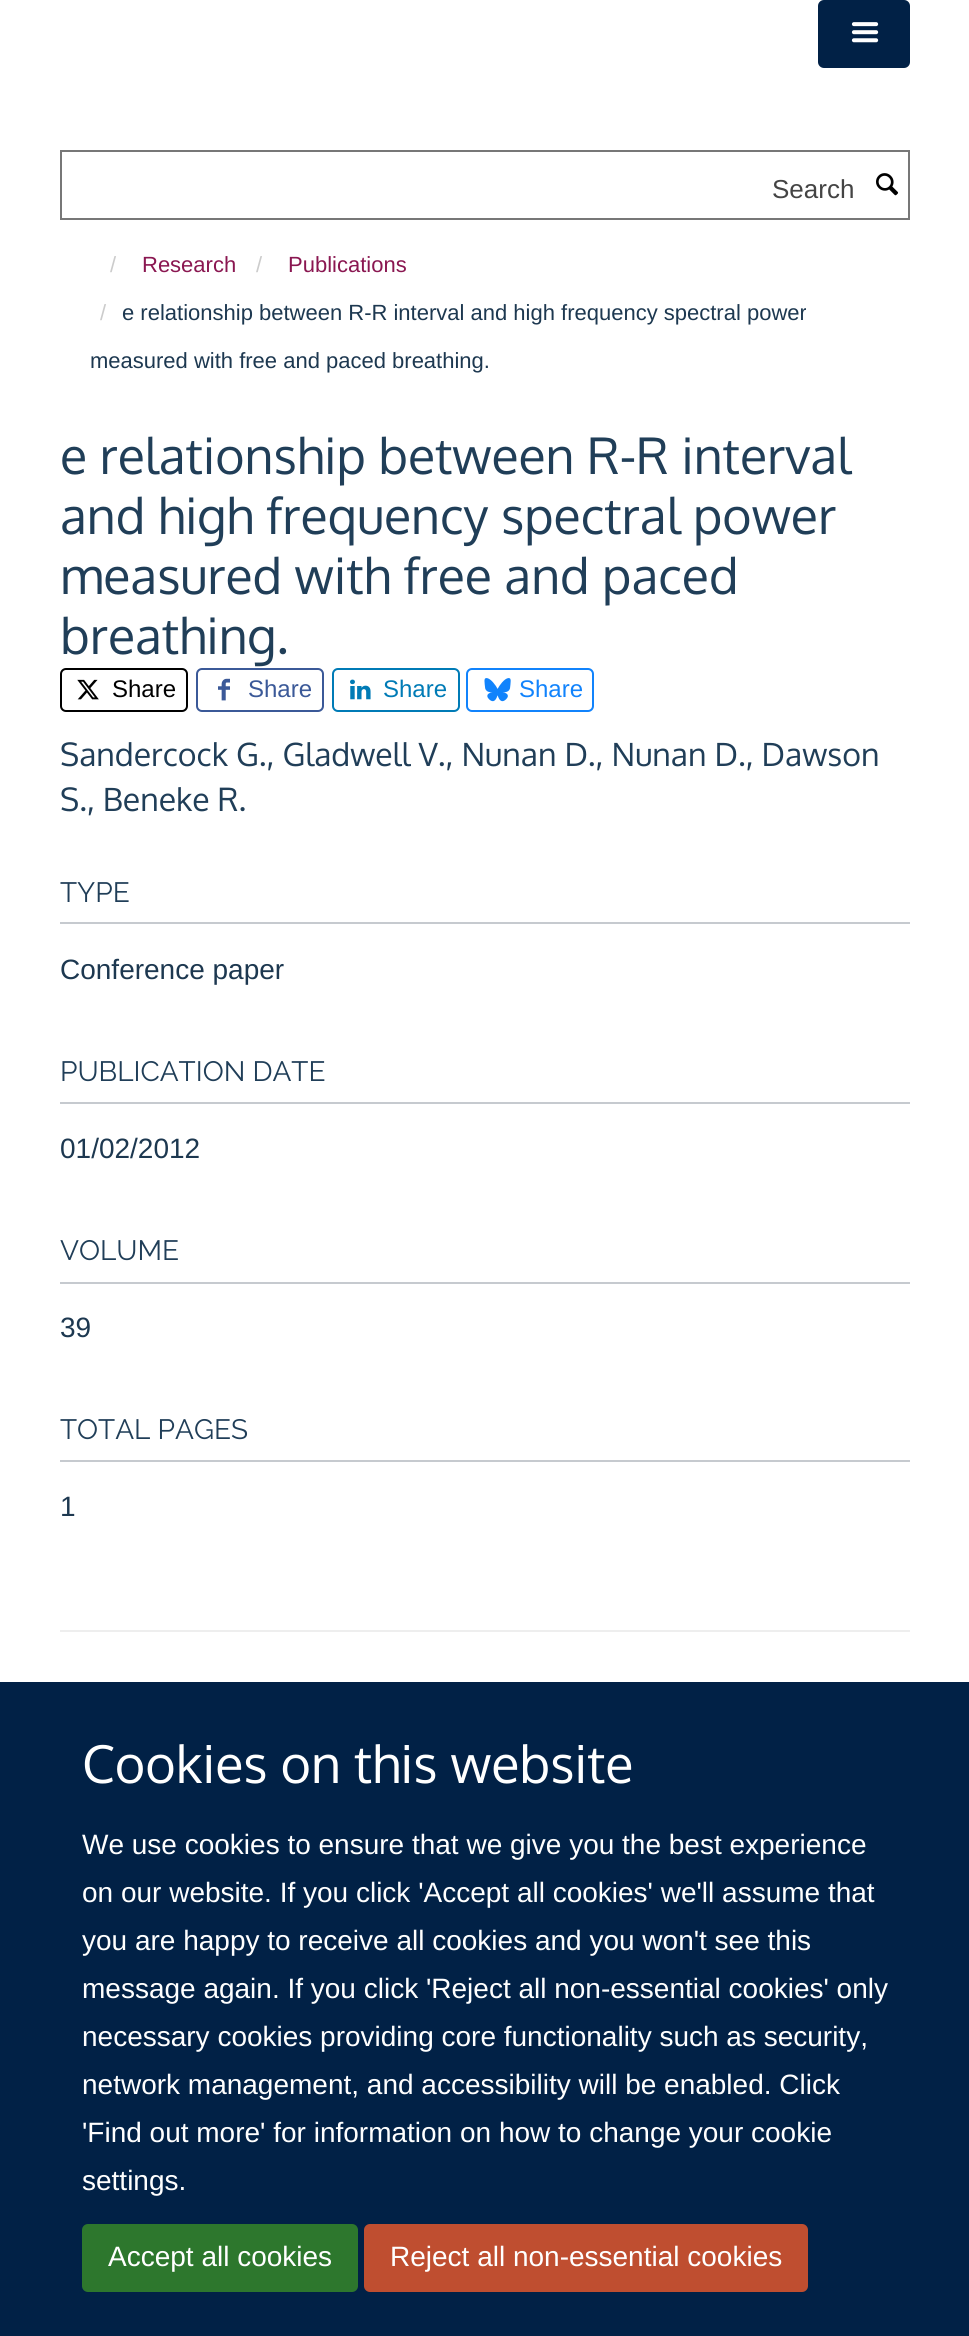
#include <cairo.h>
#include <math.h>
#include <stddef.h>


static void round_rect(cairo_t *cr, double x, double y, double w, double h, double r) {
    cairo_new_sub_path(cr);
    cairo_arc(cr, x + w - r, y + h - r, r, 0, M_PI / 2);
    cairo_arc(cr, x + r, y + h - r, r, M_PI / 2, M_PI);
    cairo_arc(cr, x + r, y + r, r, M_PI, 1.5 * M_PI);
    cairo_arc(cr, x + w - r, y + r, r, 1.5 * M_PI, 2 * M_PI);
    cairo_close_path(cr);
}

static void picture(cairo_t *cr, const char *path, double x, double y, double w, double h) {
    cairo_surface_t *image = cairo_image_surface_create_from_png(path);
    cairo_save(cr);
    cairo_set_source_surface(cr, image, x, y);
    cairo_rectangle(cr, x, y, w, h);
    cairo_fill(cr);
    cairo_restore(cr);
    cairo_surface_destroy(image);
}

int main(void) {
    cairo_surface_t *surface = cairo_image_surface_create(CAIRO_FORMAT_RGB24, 969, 2336);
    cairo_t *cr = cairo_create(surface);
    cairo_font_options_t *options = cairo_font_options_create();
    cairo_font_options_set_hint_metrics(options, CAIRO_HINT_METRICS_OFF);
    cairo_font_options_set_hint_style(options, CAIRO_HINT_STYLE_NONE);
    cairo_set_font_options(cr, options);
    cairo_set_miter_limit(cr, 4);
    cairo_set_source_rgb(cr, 1, 1, 1);
    cairo_paint(cr);
    cairo_set_source_rgb(cr, 0.004, 0.129, 0.275);
    round_rect(cr, 819, 1, 90, 66, 5);
    cairo_fill_preserve(cr);
    cairo_stroke(cr);
    picture(cr, "img1.png", 851, 22, 28, 21);
    cairo_rectangle(cr, 61, 151, 848, 68);
    cairo_set_source_rgb(cr, 0.467, 0.467, 0.467);
    cairo_stroke(cr);
    cairo_select_font_face(cr, "Liberation Sans", CAIRO_FONT_SLANT_NORMAL, CAIRO_FONT_WEIGHT_NORMAL);
    cairo_set_font_size(cr, 26);
    cairo_set_source_rgb(cr, 0.267, 0.267, 0.267);
    cairo_move_to(cr, 772, 198);
    cairo_show_text(cr, "Search");
    picture(cr, "img2.png", 876, 173, 23, 23);
    cairo_set_font_size(cr, 22);
    cairo_set_source_rgb(cr, 0.8, 0.8, 0.8);
    cairo_move_to(cr, 110, 272);
    cairo_show_text(cr, "/");
    cairo_set_source_rgb(cr, 0.541, 0.09, 0.318);
    cairo_move_to(cr, 142, 272);
    cairo_show_text(cr, "Research");
    cairo_set_source_rgb(cr, 0.8, 0.8, 0.8);
    cairo_move_to(cr, 256, 272);
    cairo_show_text(cr, "/");
    cairo_set_source_rgb(cr, 0.541, 0.09, 0.318);
    cairo_move_to(cr, 288, 272);
    cairo_show_text(cr, "Publications");
    cairo_set_source_rgb(cr, 0.8, 0.8, 0.8);
    cairo_move_to(cr, 100, 320);
    cairo_show_text(cr, "/");
    cairo_set_source_rgb(cr, 0.114, 0.22, 0.314);
    cairo_move_to(cr, 122, 320);
    cairo_show_text(cr, "e relationship between R-R interval and high frequency spectral power");
    cairo_move_to(cr, 90, 368);
    cairo_show_text(cr, "measured with free and paced breathing.");
    cairo_select_font_face(cr, "Oxygen", CAIRO_FONT_SLANT_NORMAL, CAIRO_FONT_WEIGHT_NORMAL);
    cairo_set_font_size(cr, 50);
    cairo_set_source_rgb(cr, 0.125, 0.243, 0.345);
    cairo_move_to(cr, 60, 474);
    cairo_show_text(cr, "e relationship between R-R interval");
    cairo_move_to(cr, 60, 534);
    cairo_show_text(cr, "and high frequency spectral power");
    cairo_move_to(cr, 60, 594);
    cairo_show_text(cr, "measured with free and paced");
    cairo_move_to(cr, 60, 654);
    cairo_show_text(cr, "breathing.");
    round_rect(cr, 61, 669, 126, 42, 5);
    cairo_set_source_rgb(cr, 0, 0, 0);
    cairo_stroke(cr);
    picture(cr, "img3.png", 77, 679, 22, 21);
    cairo_select_font_face(cr, "Liberation Sans", CAIRO_FONT_SLANT_NORMAL, CAIRO_FONT_WEIGHT_NORMAL);
    cairo_set_font_size(cr, 24);
    cairo_move_to(cr, 112, 697);
    cairo_show_text(cr, "Share");
    round_rect(cr, 197, 669, 126, 42, 5);
    cairo_set_source_rgb(cr, 0.231, 0.349, 0.596);
    cairo_stroke(cr);
    picture(cr, "img4.png", 218, 678, 12, 23);
    cairo_move_to(cr, 248, 697);
    cairo_show_text(cr, "Share");
    round_rect(cr, 333, 669, 126, 42, 5);
    cairo_set_source_rgb(cr, 0, 0.482, 0.714);
    cairo_stroke(cr);
    picture(cr, "img5.png", 350, 679, 21, 21);
    cairo_move_to(cr, 383, 697);
    cairo_show_text(cr, "Share");
    round_rect(cr, 467, 669, 126, 42, 5);
    cairo_set_source_rgb(cr, 0.067, 0.514, 0.988);
    cairo_stroke(cr);
    picture(cr, "img6.png", 484, 678, 27, 24);
    cairo_move_to(cr, 519, 697);
    cairo_show_text(cr, "Share");
    cairo_select_font_face(cr, "Oxygen", CAIRO_FONT_SLANT_NORMAL, CAIRO_FONT_WEIGHT_NORMAL);
    cairo_set_font_size(cr, 32);
    cairo_set_source_rgb(cr, 0.125, 0.243, 0.345);
    cairo_move_to(cr, 60, 766);
    cairo_show_text(cr, "Sandercock G., Gladwell V., Nunan D., Nunan D., Dawson");
    cairo_move_to(cr, 60, 811);
    cairo_show_text(cr, "S., Beneke R.");
    cairo_set_source_rgb(cr, 0.776, 0.792, 0.812);
    cairo_rectangle(cr, 60, 922, 850, 2);
    cairo_fill(cr);
    cairo_select_font_face(cr, "Raleway Thin", CAIRO_FONT_SLANT_NORMAL, CAIRO_FONT_WEIGHT_NORMAL);
    cairo_set_font_size(cr, 28);
    cairo_set_source_rgb(cr, 0.125, 0.243, 0.345);
    cairo_move_to(cr, 60, 902);
    cairo_show_text(cr, "TYPE");
    cairo_select_font_face(cr, "Liberation Sans", CAIRO_FONT_SLANT_NORMAL, CAIRO_FONT_WEIGHT_NORMAL);
    cairo_set_source_rgb(cr, 0.114, 0.22, 0.314);
    cairo_move_to(cr, 60, 979);
    cairo_show_text(cr, "Conference paper");
    cairo_set_source_rgb(cr, 0.776, 0.792, 0.812);
    cairo_rectangle(cr, 60, 1102, 850, 2);
    cairo_fill(cr);
    cairo_select_font_face(cr, "Raleway Thin", CAIRO_FONT_SLANT_NORMAL, CAIRO_FONT_WEIGHT_NORMAL);
    cairo_set_source_rgb(cr, 0.125, 0.243, 0.345);
    cairo_move_to(cr, 60, 1081);
    cairo_show_text(cr, "PUBLICATION DATE");
    cairo_select_font_face(cr, "Liberation Sans", CAIRO_FONT_SLANT_NORMAL, CAIRO_FONT_WEIGHT_NORMAL);
    cairo_set_source_rgb(cr, 0.114, 0.22, 0.314);
    cairo_move_to(cr, 60, 1158);
    cairo_show_text(cr, "01/02/2012");
    cairo_set_source_rgb(cr, 0.776, 0.792, 0.812);
    cairo_rectangle(cr, 60, 1282, 850, 2);
    cairo_fill(cr);
    cairo_select_font_face(cr, "Raleway Thin", CAIRO_FONT_SLANT_NORMAL, CAIRO_FONT_WEIGHT_NORMAL);
    cairo_set_source_rgb(cr, 0.125, 0.243, 0.345);
    cairo_move_to(cr, 60, 1260);
    cairo_show_text(cr, "VOLUME");
    cairo_select_font_face(cr, "Liberation Sans", CAIRO_FONT_SLANT_NORMAL, CAIRO_FONT_WEIGHT_NORMAL);
    cairo_set_source_rgb(cr, 0.114, 0.22, 0.314);
    cairo_move_to(cr, 60, 1337);
    cairo_show_text(cr, "39");
    cairo_set_source_rgb(cr, 0.776, 0.792, 0.812);
    cairo_rectangle(cr, 60, 1460, 850, 2);
    cairo_fill(cr);
    cairo_select_font_face(cr, "Raleway Thin", CAIRO_FONT_SLANT_NORMAL, CAIRO_FONT_WEIGHT_NORMAL);
    cairo_set_source_rgb(cr, 0.125, 0.243, 0.345);
    cairo_move_to(cr, 60, 1439);
    cairo_show_text(cr, "TOTAL PAGES");
    cairo_select_font_face(cr, "Liberation Sans", CAIRO_FONT_SLANT_NORMAL, CAIRO_FONT_WEIGHT_NORMAL);
    cairo_set_source_rgb(cr, 0.114, 0.22, 0.314);
    cairo_move_to(cr, 60, 1516);
    cairo_show_text(cr, "1");
    cairo_set_source_rgb(cr, 0.933, 0.933, 0.933);
    cairo_rectangle(cr, 60, 1630, 850, 2);
    cairo_fill(cr);
    cairo_set_source_rgb(cr, 0.004, 0.129, 0.275);
    cairo_rectangle(cr, 0, 1682, 969, 654);
    cairo_fill(cr);
    cairo_select_font_face(cr, "Oxygen", CAIRO_FONT_SLANT_NORMAL, CAIRO_FONT_WEIGHT_NORMAL);
    cairo_set_font_size(cr, 52);
    cairo_set_source_rgb(cr, 1, 1, 1);
    cairo_move_to(cr, 82, 1783);
    cairo_show_text(cr, "Cookies on this website");
    cairo_select_font_face(cr, "Liberation Sans", CAIRO_FONT_SLANT_NORMAL, CAIRO_FONT_WEIGHT_NORMAL);
    cairo_set_font_size(cr, 28);
    cairo_move_to(cr, 82, 1854);
    cairo_show_text(cr, "We use cookies to ensure that we give you the best experience");
    cairo_move_to(cr, 82, 1902);
    cairo_show_text(cr, "on our website. If you click 'Accept all cookies' we'll assume that");
    cairo_move_to(cr, 82, 1950);
    cairo_show_text(cr, "you are happy to receive all cookies and you won't see this");
    cairo_move_to(cr, 82, 1998);
    cairo_show_text(cr, "message again. If you click 'Reject all non-essential cookies' only");
    cairo_move_to(cr, 82, 2046);
    cairo_show_text(cr, "necessary cookies providing core functionality such as security,");
    cairo_move_to(cr, 82, 2094);
    cairo_show_text(cr, "network management, and accessibility will be enabled. Click");
    cairo_move_to(cr, 82, 2142);
    cairo_show_text(cr, "'Find out more' for information on how to change your cookie");
    cairo_move_to(cr, 82, 2190);
    cairo_show_text(cr, "settings.");
    cairo_set_source_rgb(cr, 0.176, 0.467, 0.176);
    round_rect(cr, 83, 2225, 274, 66, 5);
    cairo_fill_preserve(cr);
    cairo_stroke(cr);
    cairo_set_source_rgb(cr, 1, 1, 1);
    cairo_move_to(cr, 108, 2266);
    cairo_show_text(cr, "Accept all cookies");
    cairo_set_source_rgb(cr, 0.749, 0.306, 0.188);
    round_rect(cr, 365, 2225, 442, 66, 5);
    cairo_fill_preserve(cr);
    cairo_stroke(cr);
    cairo_set_source_rgb(cr, 1, 1, 1);
    cairo_move_to(cr, 390, 2266);
    cairo_show_text(cr, "Reject all non-essential cookies");
    cairo_surface_write_to_png(surface, "page.png");
    cairo_font_options_destroy(options);
    cairo_destroy(cr);
    cairo_surface_destroy(surface);
    return 0;
}
